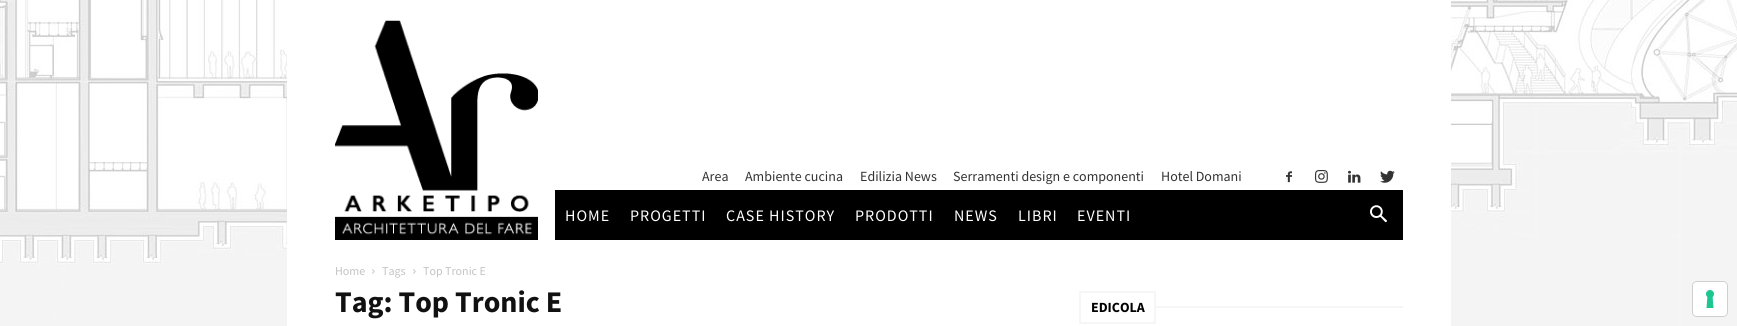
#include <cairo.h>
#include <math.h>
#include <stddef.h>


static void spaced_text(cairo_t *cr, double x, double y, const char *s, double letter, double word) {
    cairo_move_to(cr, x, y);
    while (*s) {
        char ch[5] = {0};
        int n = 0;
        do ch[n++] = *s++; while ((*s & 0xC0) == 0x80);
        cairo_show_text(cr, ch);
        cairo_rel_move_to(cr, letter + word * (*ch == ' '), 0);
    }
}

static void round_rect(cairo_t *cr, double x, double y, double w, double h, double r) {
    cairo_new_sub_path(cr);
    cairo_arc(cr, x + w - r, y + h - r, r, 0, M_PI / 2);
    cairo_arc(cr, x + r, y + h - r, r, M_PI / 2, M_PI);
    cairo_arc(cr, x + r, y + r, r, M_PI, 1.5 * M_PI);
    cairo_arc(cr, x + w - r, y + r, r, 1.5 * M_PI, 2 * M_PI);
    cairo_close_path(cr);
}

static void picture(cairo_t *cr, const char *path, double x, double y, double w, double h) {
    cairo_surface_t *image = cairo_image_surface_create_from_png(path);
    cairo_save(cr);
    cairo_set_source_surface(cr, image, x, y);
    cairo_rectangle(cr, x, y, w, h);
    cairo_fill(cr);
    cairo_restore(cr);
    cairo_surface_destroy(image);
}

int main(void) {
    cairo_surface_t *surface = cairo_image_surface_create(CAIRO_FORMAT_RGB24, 1737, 326);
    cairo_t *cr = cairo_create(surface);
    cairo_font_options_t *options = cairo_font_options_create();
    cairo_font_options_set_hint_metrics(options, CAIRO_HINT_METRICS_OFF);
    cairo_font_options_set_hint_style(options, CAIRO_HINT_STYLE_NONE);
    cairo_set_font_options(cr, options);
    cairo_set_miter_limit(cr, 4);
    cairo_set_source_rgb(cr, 1, 1, 1);
    cairo_paint(cr);
    picture(cr, "img1.png", 0, 0, 1737, 326);
    cairo_set_source_rgb(cr, 1, 1, 1);
    cairo_rectangle(cr, 287, 0, 1164, 326);
    cairo_fill(cr);
    picture(cr, "img2.png", 335, 20, 203, 220);
    cairo_select_font_face(cr, "Source Sans Pro", CAIRO_FONT_SLANT_NORMAL, CAIRO_FONT_WEIGHT_NORMAL);
    cairo_set_font_size(cr, 14);
    cairo_set_source_rgb(cr, 0.2, 0.2, 0.2);
    cairo_move_to(cr, 702, 181);
    cairo_show_text(cr, "Area");
    cairo_move_to(cr, 745, 181);
    cairo_show_text(cr, "Ambiente cucina");
    cairo_move_to(cr, 860, 181);
    cairo_show_text(cr, "Edilizia News");
    cairo_move_to(cr, 953, 181);
    cairo_show_text(cr, "Serramenti design e componenti");
    cairo_move_to(cr, 1161, 181);
    cairo_show_text(cr, "Hotel Domani");
    picture(cr, "img3.png", 1286, 171, 6, 12);
    picture(cr, "img4.png", 1315, 170, 13, 13);
    picture(cr, "img5.png", 1348, 170, 13, 13);
    picture(cr, "img6.png", 1380, 170, 15, 13);
    cairo_set_source_rgb(cr, 0, 0, 0);
    cairo_rectangle(cr, 555, 190, 848, 50);
    cairo_fill(cr);
    cairo_set_font_size(cr, 16);
    cairo_set_source_rgb(cr, 1, 1, 1);
    spaced_text(cr, 565, 221, "HOME", 1, 0);
    spaced_text(cr, 630, 221, "PROGETTI", 1, 0);
    spaced_text(cr, 726, 221, "CASE HISTORY", 1, 0);
    spaced_text(cr, 855, 221, "PRODOTTI", 1, 0);
    spaced_text(cr, 954, 221, "NEWS", 1, 0);
    spaced_text(cr, 1018, 221, "LIBRI", 1, 0);
    spaced_text(cr, 1077, 221, "EVENTI", 1, 0);
    picture(cr, "img7.png", 1370, 205, 17, 18);
    cairo_set_font_size(cr, 12);
    cairo_set_source_rgb(cr, 0.765, 0.765, 0.765);
    cairo_move_to(cr, 335, 275);
    cairo_show_text(cr, "Home");
    picture(cr, "img8.png", 372, 269, 3, 5);
    cairo_move_to(cr, 382, 275);
    cairo_show_text(cr, "Tags");
    picture(cr, "img8.png", 413, 269, 3, 5);
    cairo_move_to(cr, 423, 275);
    cairo_show_text(cr, "Top Tronic E");
    cairo_select_font_face(cr, "Source Sans Pro", CAIRO_FONT_SLANT_NORMAL, CAIRO_FONT_WEIGHT_BOLD);
    cairo_set_font_size(cr, 30);
    cairo_set_source_rgb(cr, 0.067, 0.067, 0.067);
    cairo_move_to(cr, 335, 312);
    cairo_show_text(cr, "Tag: Top Tronic E");
    cairo_rectangle(cr, 1080, 292, 75, 31);
    cairo_set_source_rgb(cr, 0.961, 0.961, 0.961);
    cairo_stroke(cr);
    cairo_set_font_size(cr, 14);
    cairo_set_source_rgb(cr, 0, 0, 0);
    cairo_move_to(cr, 1091, 312);
    cairo_show_text(cr, "EDICOLA");
    cairo_set_source_rgb(cr, 0.961, 0.961, 0.961);
    cairo_rectangle(cr, 1154, 306, 249, 2);
    cairo_fill(cr);
    round_rect(cr, 1692.5, 281.5, 35, 35, 4.5);
    cairo_set_source_rgb(cr, 0.812, 0.812, 0.812);
    cairo_set_line_width(cr, 1);
    cairo_stroke(cr);
    cairo_set_source_rgb(cr, 1, 1, 1);
    round_rect(cr, 1693, 282, 34, 34, 4);
    cairo_fill(cr);
    picture(cr, "img9.png", 1706, 290, 8, 18);
    cairo_surface_write_to_png(surface, "page.png");
    cairo_font_options_destroy(options);
    cairo_destroy(cr);
    cairo_surface_destroy(surface);
    return 0;
}
